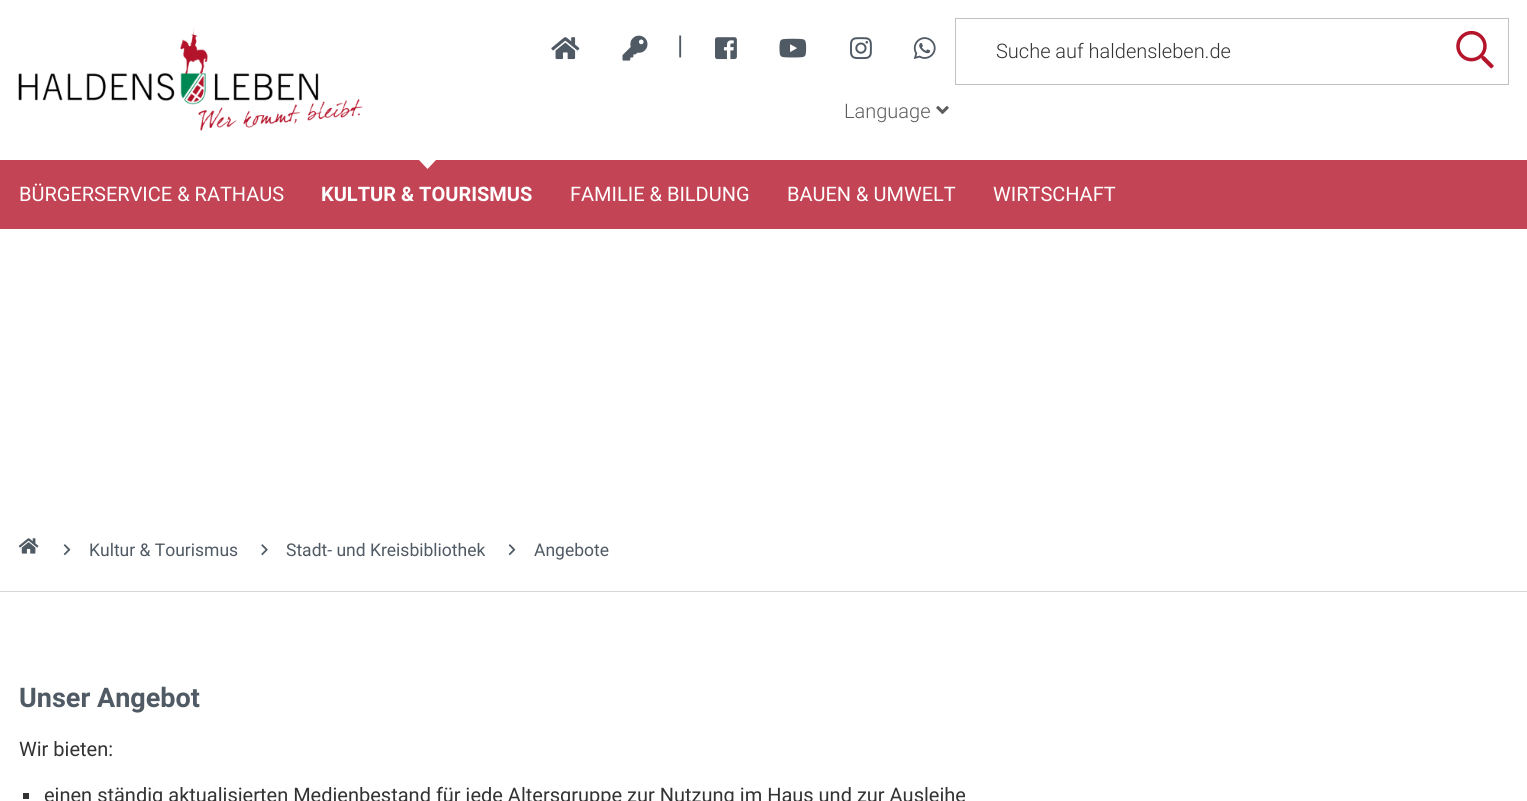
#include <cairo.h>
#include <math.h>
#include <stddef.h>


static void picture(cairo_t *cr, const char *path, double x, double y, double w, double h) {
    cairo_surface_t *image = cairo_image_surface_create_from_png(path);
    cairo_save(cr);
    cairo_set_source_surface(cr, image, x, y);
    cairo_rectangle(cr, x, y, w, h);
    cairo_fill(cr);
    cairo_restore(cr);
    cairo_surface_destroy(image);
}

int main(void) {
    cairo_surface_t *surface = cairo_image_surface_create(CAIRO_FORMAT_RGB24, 1527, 801);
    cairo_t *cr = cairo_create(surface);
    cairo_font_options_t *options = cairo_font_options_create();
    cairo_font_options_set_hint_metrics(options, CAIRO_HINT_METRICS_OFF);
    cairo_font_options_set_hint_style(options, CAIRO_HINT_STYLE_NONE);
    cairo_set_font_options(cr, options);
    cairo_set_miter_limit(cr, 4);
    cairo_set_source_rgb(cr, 1, 1, 1);
    cairo_paint(cr);
    picture(cr, "img1.png", 18, 27, 345, 104);
    picture(cr, "img2.png", 551, 37, 29, 23);
    picture(cr, "img3.png", 622, 35, 26, 26);
    cairo_select_font_face(cr, "Roboto", CAIRO_FONT_SLANT_NORMAL, CAIRO_FONT_WEIGHT_NORMAL);
    cairo_set_font_size(cr, 26);
    cairo_set_source_rgb(cr, 0.314, 0.353, 0.392);
    cairo_move_to(cr, 677, 54);
    cairo_show_text(cr, "|");
    picture(cr, "img4.png", 715, 37, 22, 23);
    picture(cr, "img5.png", 779, 38, 28, 20);
    picture(cr, "img6.png", 850, 37, 22, 23);
    picture(cr, "img7.png", 913, 37, 23, 22);
    cairo_select_font_face(cr, "Roboto Light", CAIRO_FONT_SLANT_NORMAL, CAIRO_FONT_WEIGHT_NORMAL);
    cairo_set_font_size(cr, 20);
    cairo_set_source_rgb(cr, 0.365, 0.365, 0.365);
    cairo_move_to(cr, 844, 118);
    cairo_show_text(cr, "Language");
    picture(cr, "img8.png", 936, 106, 13, 8);
    cairo_rectangle(cr, 955.5, 18.5, 553, 66);
    cairo_set_source_rgb(cr, 0.757, 0.757, 0.757);
    cairo_set_line_width(cr, 1);
    cairo_stroke(cr);
    cairo_set_source_rgb(cr, 0.2, 0.2, 0.2);
    cairo_move_to(cr, 996, 58);
    cairo_show_text(cr, "Suche auf haldensleben.de");
    picture(cr, "img9.png", 1456, 30, 38, 39);
    cairo_set_source_rgb(cr, 0.765, 0.267, 0.333);
    cairo_rectangle(cr, 0, 160, 1527, 69);
    cairo_fill(cr);
    cairo_select_font_face(cr, "Roboto", CAIRO_FONT_SLANT_NORMAL, CAIRO_FONT_WEIGHT_NORMAL);
    cairo_set_source_rgb(cr, 1, 1, 1);
    cairo_move_to(cr, 19, 201);
    cairo_show_text(cr, "BÜRGERSERVICE & RATHAUS");
    cairo_new_path(cr);
    cairo_move_to(cr, 419, 160);
    cairo_line_to(cr, 436, 160);
    cairo_line_to(cr, 427.5, 169);
    cairo_close_path(cr);
    cairo_fill(cr);
    cairo_select_font_face(cr, "Roboto", CAIRO_FONT_SLANT_NORMAL, CAIRO_FONT_WEIGHT_BOLD);
    cairo_move_to(cr, 321, 201);
    cairo_show_text(cr, "KULTUR & TOURISMUS");
    cairo_select_font_face(cr, "Roboto", CAIRO_FONT_SLANT_NORMAL, CAIRO_FONT_WEIGHT_NORMAL);
    cairo_move_to(cr, 570, 201);
    cairo_show_text(cr, "FAMILIE & BILDUNG");
    cairo_move_to(cr, 787, 201);
    cairo_show_text(cr, "BAUEN & UMWELT");
    cairo_move_to(cr, 993, 201);
    cairo_show_text(cr, "WIRTSCHAFT");
    cairo_set_source_rgb(cr, 0.839, 0.839, 0.839);
    cairo_rectangle(cr, 0, 591, 1527, 1);
    cairo_fill(cr);
    picture(cr, "img10.png", 18, 538, 21, 16);
    picture(cr, "img11.png", 63, 544, 8, 12);
    cairo_set_font_size(cr, 17.5);
    cairo_set_source_rgb(cr, 0.314, 0.353, 0.392);
    cairo_move_to(cr, 89, 556);
    cairo_show_text(cr, "Kultur & Tourismus");
    picture(cr, "img12.png", 261, 544, 7, 12);
    cairo_move_to(cr, 286, 556);
    cairo_show_text(cr, "Stadt- und Kreisbibliothek");
    picture(cr, "img11.png", 508, 544, 8, 12);
    cairo_move_to(cr, 534, 556);
    cairo_show_text(cr, "Angebote");
    cairo_select_font_face(cr, "Roboto", CAIRO_FONT_SLANT_NORMAL, CAIRO_FONT_WEIGHT_BOLD);
    cairo_set_font_size(cr, 27);
    cairo_move_to(cr, 19, 707);
    cairo_show_text(cr, "Unser Angebot");
    cairo_select_font_face(cr, "Roboto", CAIRO_FONT_SLANT_NORMAL, CAIRO_FONT_WEIGHT_NORMAL);
    cairo_set_font_size(cr, 20);
    cairo_set_source_rgb(cr, 0.2, 0.2, 0.2);
    cairo_move_to(cr, 19, 756);
    cairo_show_text(cr, "Wir bieten:");
    cairo_rectangle(cr, 23, 793, 6, 6);
    cairo_fill(cr);
    cairo_move_to(cr, 44, 802);
    cairo_show_text(cr, "einen ständig aktualisierten Medienbestand für jede Altersgruppe zur Nutzung im Haus und zur Ausleihe");
    cairo_surface_write_to_png(surface, "page.png");
    cairo_font_options_destroy(options);
    cairo_destroy(cr);
    cairo_surface_destroy(surface);
    return 0;
}
